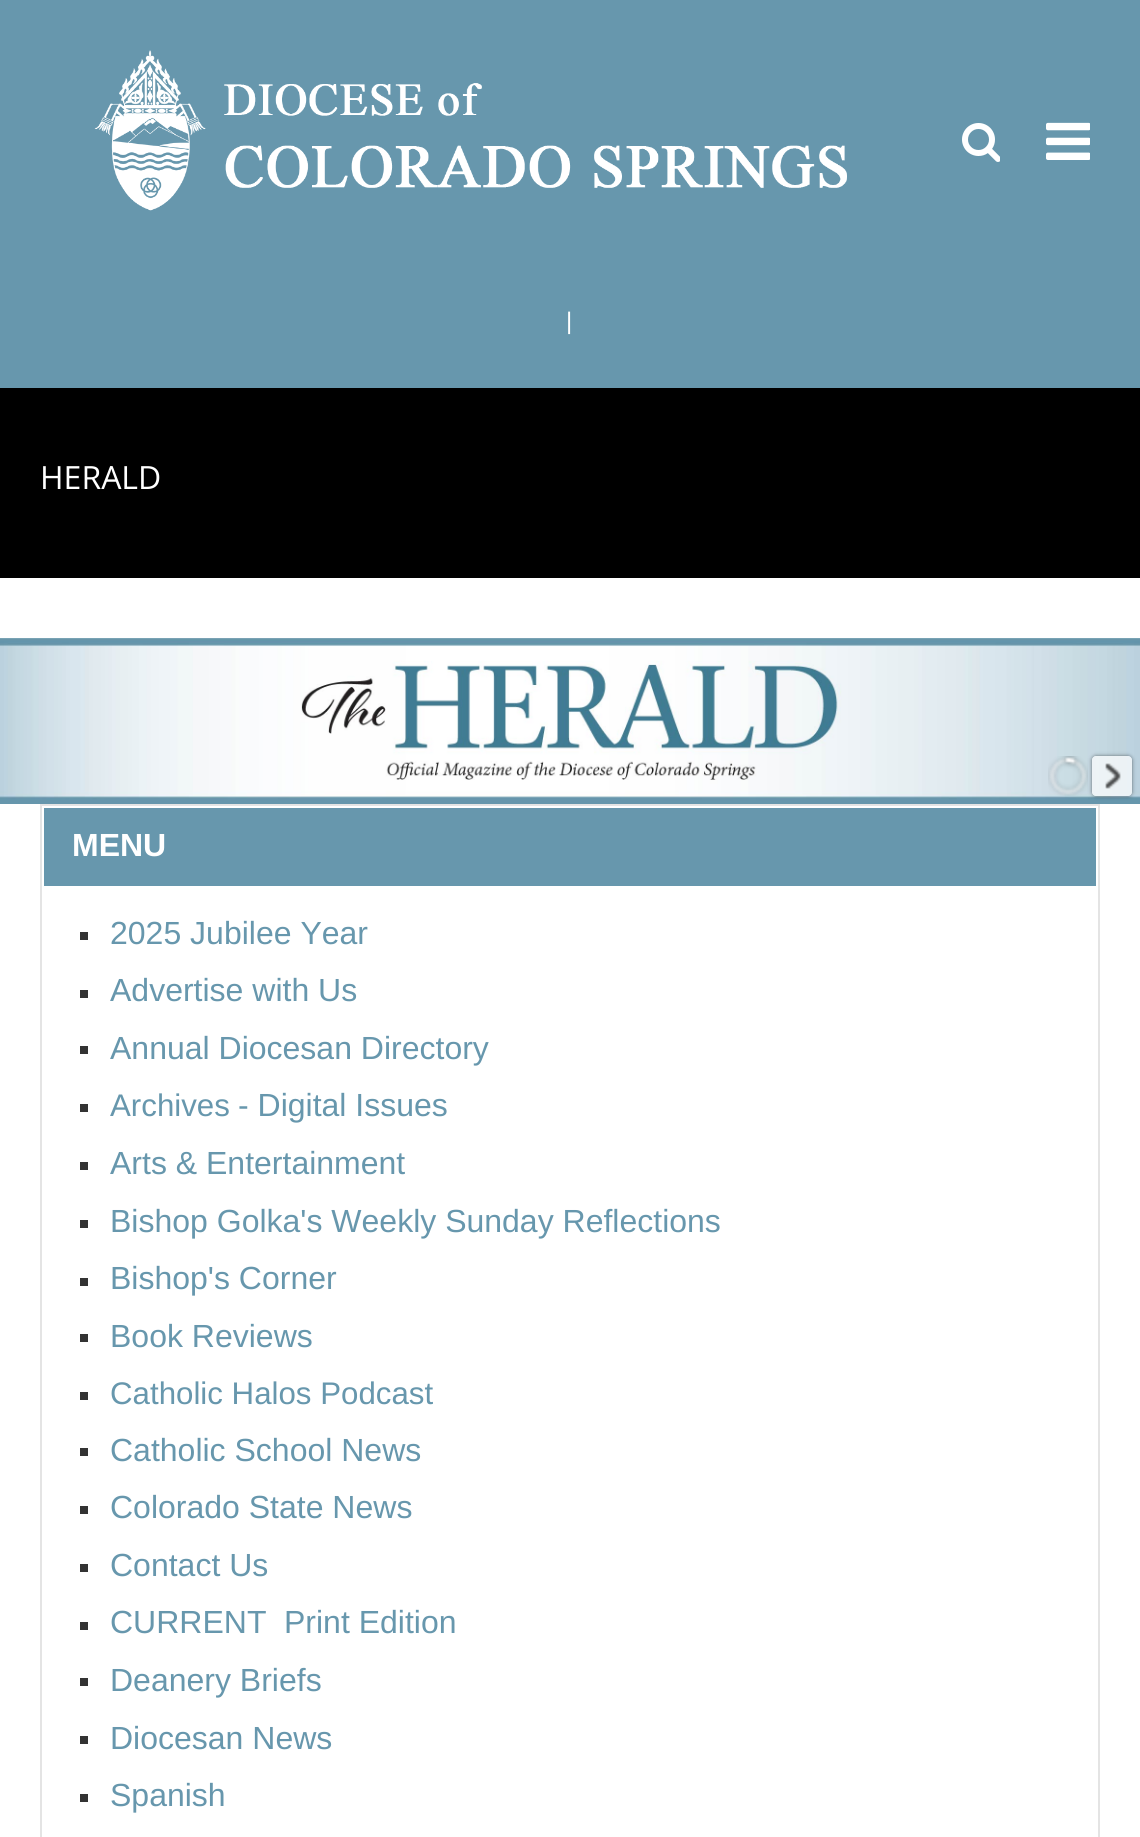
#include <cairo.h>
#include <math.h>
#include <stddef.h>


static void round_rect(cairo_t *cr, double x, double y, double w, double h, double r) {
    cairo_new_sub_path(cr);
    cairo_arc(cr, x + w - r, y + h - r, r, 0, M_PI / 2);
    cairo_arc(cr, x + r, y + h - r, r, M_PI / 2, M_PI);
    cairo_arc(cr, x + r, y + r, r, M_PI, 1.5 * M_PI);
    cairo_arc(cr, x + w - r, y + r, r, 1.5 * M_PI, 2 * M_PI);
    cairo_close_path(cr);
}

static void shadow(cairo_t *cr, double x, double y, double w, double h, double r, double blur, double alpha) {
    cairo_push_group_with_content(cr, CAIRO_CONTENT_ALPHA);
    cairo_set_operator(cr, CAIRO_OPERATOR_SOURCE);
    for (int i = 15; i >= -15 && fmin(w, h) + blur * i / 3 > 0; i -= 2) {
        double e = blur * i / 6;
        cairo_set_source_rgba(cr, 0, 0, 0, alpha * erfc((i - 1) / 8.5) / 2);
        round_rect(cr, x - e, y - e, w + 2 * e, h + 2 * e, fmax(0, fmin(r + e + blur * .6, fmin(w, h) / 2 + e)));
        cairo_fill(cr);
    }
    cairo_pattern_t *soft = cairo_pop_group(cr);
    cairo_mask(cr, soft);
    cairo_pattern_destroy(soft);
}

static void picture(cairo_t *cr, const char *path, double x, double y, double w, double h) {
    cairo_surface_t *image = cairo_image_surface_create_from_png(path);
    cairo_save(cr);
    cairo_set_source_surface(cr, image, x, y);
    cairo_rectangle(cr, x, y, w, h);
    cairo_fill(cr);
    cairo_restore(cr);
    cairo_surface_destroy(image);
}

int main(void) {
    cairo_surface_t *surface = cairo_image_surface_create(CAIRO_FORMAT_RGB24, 1140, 1837);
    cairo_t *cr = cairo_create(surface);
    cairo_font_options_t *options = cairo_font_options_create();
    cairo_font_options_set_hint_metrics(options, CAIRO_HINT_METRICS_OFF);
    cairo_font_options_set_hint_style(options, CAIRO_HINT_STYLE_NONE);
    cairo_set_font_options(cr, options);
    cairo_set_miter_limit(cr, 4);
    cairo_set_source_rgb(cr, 1, 1, 1);
    cairo_paint(cr);
    cairo_set_source_rgb(cr, 0.404, 0.592, 0.678);
    cairo_rectangle(cr, 0, 0, 1140, 388);
    cairo_fill(cr);
    picture(cr, "img1.png", 94, 50, 753, 161);
    picture(cr, "img2.png", 962, 123, 38, 39);
    picture(cr, "img3.png", 1046, 122, 44, 38);
    cairo_select_font_face(cr, "Liberation Sans", CAIRO_FONT_SLANT_NORMAL, CAIRO_FONT_WEIGHT_NORMAL);
    cairo_set_font_size(cr, 24);
    cairo_set_source_rgb(cr, 1, 1, 1);
    cairo_move_to(cr, 566, 329);
    cairo_show_text(cr, "|");
    cairo_set_source_rgb(cr, 0, 0, 0);
    cairo_rectangle(cr, 0, 388, 1140, 190);
    cairo_fill(cr);
    cairo_select_font_face(cr, "Open Sans", CAIRO_FONT_SLANT_NORMAL, CAIRO_FONT_WEIGHT_NORMAL);
    cairo_set_font_size(cr, 32);
    cairo_set_source_rgb(cr, 1, 1, 1);
    cairo_move_to(cr, 40, 489);
    cairo_show_text(cr, "HERALD");
    picture(cr, "img4.png", 0, 638, 1140, 166);
    picture(cr, "img5.png", 1048, 756, 40, 40);
    cairo_save(cr);
    cairo_set_fill_rule(cr, CAIRO_FILL_RULE_EVEN_ODD);
    cairo_new_path(cr);
    cairo_move_to(cr, 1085, 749);
    cairo_line_to(cr, 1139, 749);
    cairo_line_to(cr, 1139, 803);
    cairo_line_to(cr, 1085, 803);
    cairo_close_path(cr);
    cairo_move_to(cr, 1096, 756);
    cairo_line_to(cr, 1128, 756);
    cairo_curve_to(cr, 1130, 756, 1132, 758, 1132, 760);
    cairo_line_to(cr, 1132, 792);
    cairo_curve_to(cr, 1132, 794, 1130, 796, 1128, 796);
    cairo_line_to(cr, 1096, 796);
    cairo_curve_to(cr, 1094, 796, 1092, 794, 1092, 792);
    cairo_line_to(cr, 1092, 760);
    cairo_curve_to(cr, 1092, 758, 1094, 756, 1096, 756);
    cairo_close_path(cr);
    cairo_clip(cr);
    cairo_set_source_rgb(cr, 0, 0, 0);
    shadow(cr, 1092, 756, 40, 40, 4, 2, 0.49);
    cairo_restore(cr);
    cairo_set_source_rgba(cr, 1, 1, 1, 0.7);
    round_rect(cr, 1092, 756, 40, 40, 4);
    cairo_fill(cr);
    picture(cr, "img6.png", 1105, 763, 16, 26);
    cairo_rectangle(cr, 41, 805, 1058, 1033);
    cairo_set_source_rgb(cr, 0.894, 0.894, 0.894);
    cairo_stroke(cr);
    cairo_set_source_rgb(cr, 0.404, 0.592, 0.678);
    cairo_rectangle(cr, 44, 808, 1052, 78);
    cairo_fill(cr);
    cairo_select_font_face(cr, "Liberation Sans", CAIRO_FONT_SLANT_NORMAL, CAIRO_FONT_WEIGHT_BOLD);
    cairo_set_source_rgb(cr, 1, 1, 1);
    cairo_move_to(cr, 72, 856);
    cairo_show_text(cr, "MENU");
    cairo_set_source_rgb(cr, 0.2, 0.2, 0.2);
    cairo_rectangle(cr, 80, 932, 8, 8);
    cairo_fill(cr);
    cairo_select_font_face(cr, "Liberation Sans", CAIRO_FONT_SLANT_NORMAL, CAIRO_FONT_WEIGHT_NORMAL);
    cairo_set_source_rgb(cr, 0.404, 0.592, 0.678);
    cairo_move_to(cr, 110, 944);
    cairo_show_text(cr, "2025 Jubilee Year");
    cairo_set_source_rgb(cr, 0.2, 0.2, 0.2);
    cairo_rectangle(cr, 80, 990, 8, 8);
    cairo_fill(cr);
    cairo_set_source_rgb(cr, 0.404, 0.592, 0.678);
    cairo_move_to(cr, 110, 1001);
    cairo_show_text(cr, "Advertise with Us");
    cairo_set_source_rgb(cr, 0.2, 0.2, 0.2);
    cairo_rectangle(cr, 80, 1046, 8, 8);
    cairo_fill(cr);
    cairo_set_source_rgb(cr, 0.404, 0.592, 0.678);
    cairo_move_to(cr, 110, 1059);
    cairo_show_text(cr, "Annual Diocesan Directory");
    cairo_set_source_rgb(cr, 0.2, 0.2, 0.2);
    cairo_rectangle(cr, 80, 1104, 8, 8);
    cairo_fill(cr);
    cairo_set_font_size(cr, 31.25);
    cairo_set_source_rgb(cr, 0.404, 0.592, 0.678);
    cairo_move_to(cr, 110, 1116);
    cairo_show_text(cr, "Archives");
    cairo_set_font_size(cr, 32);
    cairo_move_to(cr, 238, 1116);
    cairo_show_text(cr, "- Digital Issues");
    cairo_set_source_rgb(cr, 0.2, 0.2, 0.2);
    cairo_rectangle(cr, 80, 1162, 8, 8);
    cairo_fill(cr);
    cairo_set_source_rgb(cr, 0.404, 0.592, 0.678);
    cairo_move_to(cr, 110, 1174);
    cairo_show_text(cr, "Arts & Entertainment");
    cairo_set_source_rgb(cr, 0.2, 0.2, 0.2);
    cairo_rectangle(cr, 80, 1220, 8, 8);
    cairo_fill(cr);
    cairo_set_source_rgb(cr, 0.404, 0.592, 0.678);
    cairo_move_to(cr, 110, 1232);
    cairo_show_text(cr, "Bishop Golka's Weekly Sunday Reflections");
    cairo_set_source_rgb(cr, 0.2, 0.2, 0.2);
    cairo_rectangle(cr, 80, 1278, 8, 8);
    cairo_fill(cr);
    cairo_set_source_rgb(cr, 0.404, 0.592, 0.678);
    cairo_move_to(cr, 110, 1289);
    cairo_show_text(cr, "Bishop's Corner");
    cairo_set_source_rgb(cr, 0.2, 0.2, 0.2);
    cairo_rectangle(cr, 80, 1334, 8, 8);
    cairo_fill(cr);
    cairo_set_source_rgb(cr, 0.404, 0.592, 0.678);
    cairo_move_to(cr, 110, 1347);
    cairo_show_text(cr, "Book Reviews");
    cairo_set_source_rgb(cr, 0.2, 0.2, 0.2);
    cairo_rectangle(cr, 80, 1392, 8, 8);
    cairo_fill(cr);
    cairo_set_font_size(cr, 31.25);
    cairo_set_source_rgb(cr, 0.404, 0.592, 0.678);
    cairo_move_to(cr, 110, 1404);
    cairo_show_text(cr, "Catholic Halos Podcast");
    cairo_set_source_rgb(cr, 0.2, 0.2, 0.2);
    cairo_rectangle(cr, 80, 1448, 8, 8);
    cairo_fill(cr);
    cairo_set_font_size(cr, 32);
    cairo_set_source_rgb(cr, 0.404, 0.592, 0.678);
    cairo_move_to(cr, 110, 1461);
    cairo_show_text(cr, "Catholic School News");
    cairo_set_source_rgb(cr, 0.2, 0.2, 0.2);
    cairo_rectangle(cr, 80, 1506, 8, 8);
    cairo_fill(cr);
    cairo_set_source_rgb(cr, 0.404, 0.592, 0.678);
    cairo_move_to(cr, 110, 1518);
    cairo_show_text(cr, "Colorado State News");
    cairo_set_source_rgb(cr, 0.2, 0.2, 0.2);
    cairo_rectangle(cr, 80, 1564, 8, 8);
    cairo_fill(cr);
    cairo_set_source_rgb(cr, 0.404, 0.592, 0.678);
    cairo_move_to(cr, 110, 1576);
    cairo_show_text(cr, "Contact Us");
    cairo_set_source_rgb(cr, 0.2, 0.2, 0.2);
    cairo_rectangle(cr, 80, 1622, 8, 8);
    cairo_fill(cr);
    cairo_set_source_rgb(cr, 0.404, 0.592, 0.678);
    cairo_move_to(cr, 110, 1633);
    cairo_show_text(cr, "CURRENT");
    cairo_move_to(cr, 284, 1633);
    cairo_show_text(cr, "Print Edition");
    cairo_set_source_rgb(cr, 0.2, 0.2, 0.2);
    cairo_rectangle(cr, 80, 1678, 8, 8);
    cairo_fill(cr);
    cairo_set_source_rgb(cr, 0.404, 0.592, 0.678);
    cairo_move_to(cr, 110, 1691);
    cairo_show_text(cr, "Deanery Briefs");
    cairo_set_source_rgb(cr, 0.2, 0.2, 0.2);
    cairo_rectangle(cr, 80, 1736, 8, 8);
    cairo_fill(cr);
    cairo_set_source_rgb(cr, 0.404, 0.592, 0.678);
    cairo_move_to(cr, 110, 1749);
    cairo_show_text(cr, "Diocesan News");
    cairo_set_source_rgb(cr, 0.2, 0.2, 0.2);
    cairo_rectangle(cr, 80, 1794, 8, 8);
    cairo_fill(cr);
    cairo_set_source_rgb(cr, 0.404, 0.592, 0.678);
    cairo_move_to(cr, 110, 1806);
    cairo_show_text(cr, "Spanish");
    cairo_surface_write_to_png(surface, "page.png");
    cairo_font_options_destroy(options);
    cairo_destroy(cr);
    cairo_surface_destroy(surface);
    return 0;
}
